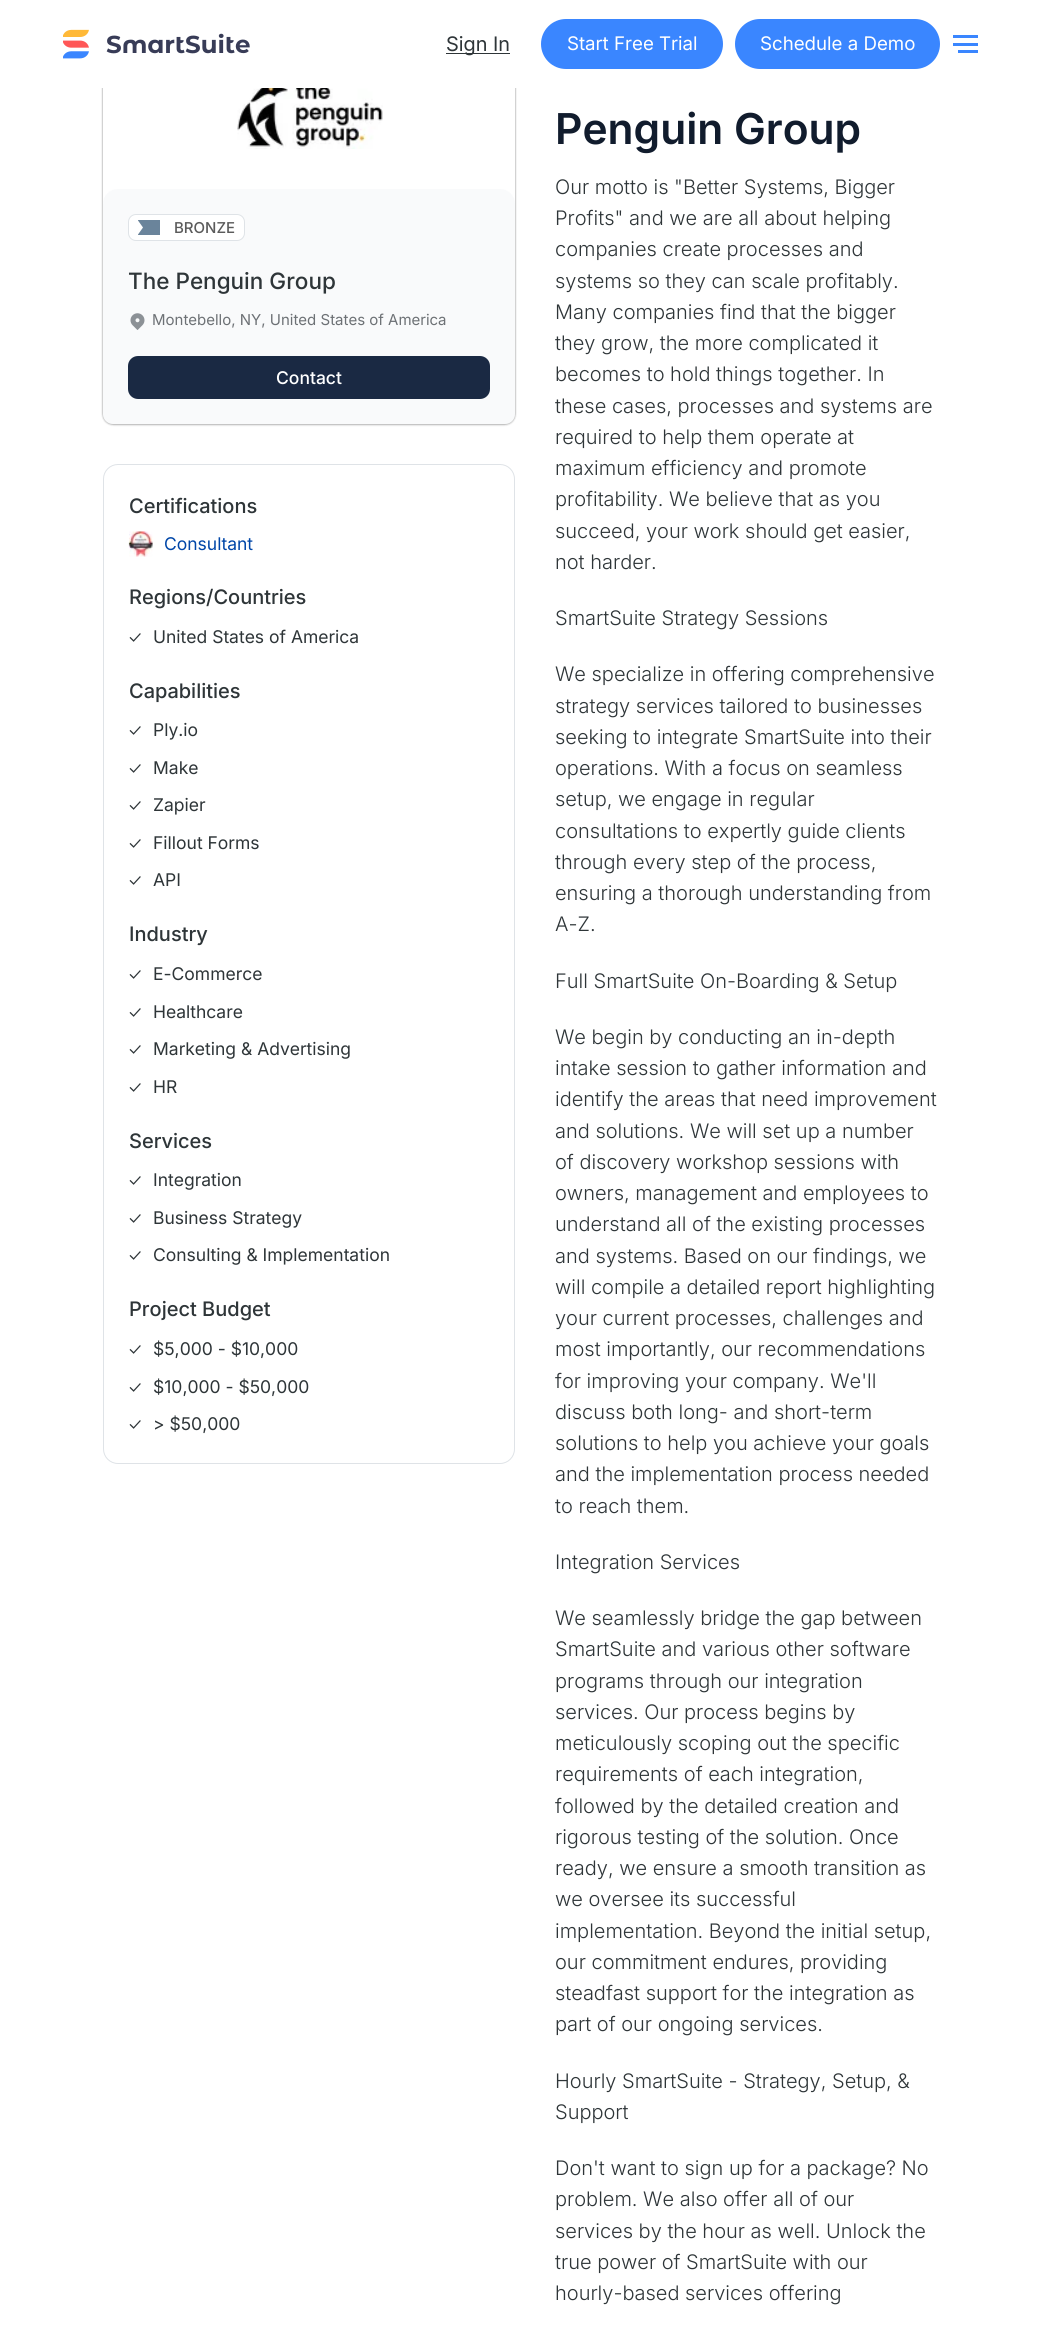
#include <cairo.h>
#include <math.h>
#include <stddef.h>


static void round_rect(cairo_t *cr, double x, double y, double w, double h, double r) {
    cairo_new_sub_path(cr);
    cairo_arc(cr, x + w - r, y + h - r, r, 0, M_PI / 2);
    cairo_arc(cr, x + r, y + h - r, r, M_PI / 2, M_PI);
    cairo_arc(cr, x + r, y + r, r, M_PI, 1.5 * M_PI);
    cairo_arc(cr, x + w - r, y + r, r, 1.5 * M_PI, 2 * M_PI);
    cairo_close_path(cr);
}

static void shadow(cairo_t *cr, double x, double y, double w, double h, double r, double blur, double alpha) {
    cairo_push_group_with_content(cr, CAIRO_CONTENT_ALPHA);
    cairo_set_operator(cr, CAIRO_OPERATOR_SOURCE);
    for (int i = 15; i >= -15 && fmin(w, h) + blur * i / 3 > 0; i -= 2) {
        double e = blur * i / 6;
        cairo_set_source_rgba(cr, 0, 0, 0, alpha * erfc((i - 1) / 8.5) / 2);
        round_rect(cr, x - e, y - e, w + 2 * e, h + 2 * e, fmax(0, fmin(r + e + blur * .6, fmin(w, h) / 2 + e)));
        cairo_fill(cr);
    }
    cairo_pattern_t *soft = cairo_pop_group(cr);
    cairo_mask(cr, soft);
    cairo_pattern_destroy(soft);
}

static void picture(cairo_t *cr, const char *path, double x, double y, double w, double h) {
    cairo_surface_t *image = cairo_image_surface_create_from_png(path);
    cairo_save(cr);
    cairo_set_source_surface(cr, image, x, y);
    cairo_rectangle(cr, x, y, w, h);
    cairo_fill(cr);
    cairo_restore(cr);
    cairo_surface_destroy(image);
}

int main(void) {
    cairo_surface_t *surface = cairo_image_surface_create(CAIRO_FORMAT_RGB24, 1039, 2325);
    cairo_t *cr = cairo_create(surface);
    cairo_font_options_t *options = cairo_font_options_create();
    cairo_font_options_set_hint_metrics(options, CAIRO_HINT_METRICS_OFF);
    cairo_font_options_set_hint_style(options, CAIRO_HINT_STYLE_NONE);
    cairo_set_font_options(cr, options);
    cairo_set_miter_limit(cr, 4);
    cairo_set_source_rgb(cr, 1, 1, 1);
    cairo_paint(cr);
    cairo_set_source_rgb(cr, 0, 0, 0);
    shadow(cr, 103, 40, 412, 385, 10, 1, 0.15);
    shadow(cr, 103, 39, 412, 385, 10, 1, 0.4);
    cairo_set_source_rgb(cr, 1, 1, 1);
    round_rect(cr, 103, 39, 412, 385, 10);
    cairo_fill(cr);
    cairo_rectangle(cr, 101, 37, 416, 51);
    cairo_fill(cr);
    picture(cr, "img1.png", 63, 29, 187, 30);
    cairo_set_source_rgb(cr, 0.18, 0.208, 0.22);
    cairo_rectangle(cr, 446, 53, 64, 1);
    cairo_fill(cr);
    cairo_select_font_face(cr, "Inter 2", CAIRO_FONT_SLANT_NORMAL, CAIRO_FONT_WEIGHT_NORMAL);
    cairo_set_font_size(cr, 20);
    cairo_move_to(cr, 446, 51);
    cairo_show_text(cr, "Sign In");
    cairo_set_source_rgb(cr, 0.227, 0.525, 1);
    round_rect(cr, 541, 19, 182, 50, 25);
    cairo_fill(cr);
    cairo_select_font_face(cr, "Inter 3", CAIRO_FONT_SLANT_NORMAL, CAIRO_FONT_WEIGHT_NORMAL);
    cairo_set_font_size(cr, 18.75);
    cairo_set_source_rgb(cr, 1, 1, 1);
    cairo_move_to(cr, 567, 50);
    cairo_show_text(cr, "Start Free Trial");
    cairo_set_source_rgb(cr, 0.227, 0.525, 1);
    round_rect(cr, 735, 19, 205, 50, 25);
    cairo_fill(cr);
    cairo_set_source_rgb(cr, 1, 1, 1);
    cairo_move_to(cr, 760, 50);
    cairo_show_text(cr, "Schedule a Demo");
    cairo_set_source_rgb(cr, 0.227, 0.525, 1);
    cairo_rectangle(cr, 953, 35, 25, 3);
    cairo_fill(cr);
    cairo_rectangle(cr, 953, 43, 25, 3);
    cairo_fill(cr);
    cairo_rectangle(cr, 958, 50, 20, 3);
    cairo_fill(cr);
    picture(cr, "img2.png", 237, 88, 146, 61);
    cairo_set_source_rgba(cr, 0.957, 0.961, 0.969, 0.5);
    cairo_new_path(cr);
    cairo_move_to(cr, 118, 189);
    cairo_line_to(cr, 500, 189);
    cairo_curve_to(cr, 508.5, 189, 515, 195.5, 515, 204);
    cairo_line_to(cr, 515, 414);
    cairo_curve_to(cr, 515, 419.5, 510.5, 424, 505, 424);
    cairo_line_to(cr, 113, 424);
    cairo_curve_to(cr, 107.5, 424, 103, 419.5, 103, 414);
    cairo_line_to(cr, 103, 204);
    cairo_curve_to(cr, 103, 195.5, 109.5, 189, 118, 189);
    cairo_close_path(cr);
    cairo_fill(cr);
    cairo_set_source_rgb(cr, 1, 1, 1);
    round_rect(cr, 128.5, 214.5, 116, 26, 7.5);
    cairo_fill_preserve(cr);
    cairo_set_source_rgb(cr, 0.875, 0.89, 0.906);
    cairo_set_line_width(cr, 1);
    cairo_stroke(cr);
    cairo_set_source_rgb(cr, 0.416, 0.518, 0.608);
    cairo_new_path(cr);
    cairo_move_to(cr, 138, 220);
    cairo_line_to(cr, 160, 220);
    cairo_line_to(cr, 160, 235);
    cairo_line_to(cr, 138, 235);
    cairo_line_to(cr, 138, 234.5);
    cairo_line_to(cr, 143, 227.5);
    cairo_line_to(cr, 138, 220.5);
    cairo_close_path(cr);
    cairo_fill(cr);
    cairo_select_font_face(cr, "Inter Medium", CAIRO_FONT_SLANT_NORMAL, CAIRO_FONT_WEIGHT_NORMAL);
    cairo_set_font_size(cr, 15);
    cairo_set_source_rgb(cr, 0.357, 0.357, 0.357);
    cairo_move_to(cr, 174, 233);
    cairo_show_text(cr, "BRONZE");
    cairo_set_font_size(cr, 22.5);
    cairo_set_source_rgb(cr, 0.18, 0.208, 0.22);
    cairo_move_to(cr, 128, 289);
    cairo_show_text(cr, "The Penguin Group");
    picture(cr, "img3.png", 130, 313, 15, 17);
    cairo_select_font_face(cr, "Inter", CAIRO_FONT_SLANT_NORMAL, CAIRO_FONT_WEIGHT_NORMAL);
    cairo_set_font_size(cr, 15);
    cairo_set_source_rgb(cr, 0.427, 0.443, 0.459);
    cairo_move_to(cr, 152, 325);
    cairo_show_text(cr, "Montebello, NY, United States of America");
    cairo_set_source_rgb(cr, 0.102, 0.161, 0.263);
    round_rect(cr, 128, 356, 362, 43, 10);
    cairo_fill(cr);
    cairo_select_font_face(cr, "Inter Medium", CAIRO_FONT_SLANT_NORMAL, CAIRO_FONT_WEIGHT_NORMAL);
    cairo_set_font_size(cr, 17.5);
    cairo_set_source_rgb(cr, 1, 1, 1);
    cairo_move_to(cr, 276, 384);
    cairo_show_text(cr, "Contact");
    round_rect(cr, 103.5, 464.5, 411, 999, 14.5);
    cairo_set_source_rgb(cr, 0.875, 0.89, 0.906);
    cairo_stroke(cr);
    cairo_set_font_size(cr, 20);
    cairo_set_source_rgb(cr, 0.18, 0.208, 0.22);
    cairo_move_to(cr, 129, 513);
    cairo_show_text(cr, "Certifications");
    picture(cr, "img4.png", 128, 531, 25, 26);
    cairo_select_font_face(cr, "Inter", CAIRO_FONT_SLANT_NORMAL, CAIRO_FONT_WEIGHT_NORMAL);
    cairo_set_font_size(cr, 17.5);
    cairo_set_source_rgb(cr, 0, 0.275, 0.659);
    cairo_move_to(cr, 164, 550);
    cairo_show_text(cr, "Consultant");
    cairo_select_font_face(cr, "Inter Medium", CAIRO_FONT_SLANT_NORMAL, CAIRO_FONT_WEIGHT_NORMAL);
    cairo_set_font_size(cr, 20);
    cairo_set_source_rgb(cr, 0.18, 0.208, 0.22);
    cairo_move_to(cr, 129, 604);
    cairo_show_text(cr, "Regions/Countries");
    cairo_select_font_face(cr, "Ubuntu", CAIRO_FONT_SLANT_NORMAL, CAIRO_FONT_WEIGHT_NORMAL);
    cairo_set_font_size(cr, 17.5);
    cairo_move_to(cr, 129, 643);
    cairo_show_text(cr, "✓");
    cairo_select_font_face(cr, "Inter", CAIRO_FONT_SLANT_NORMAL, CAIRO_FONT_WEIGHT_NORMAL);
    cairo_move_to(cr, 153, 643);
    cairo_show_text(cr, "United States of America");
    cairo_select_font_face(cr, "Inter Medium", CAIRO_FONT_SLANT_NORMAL, CAIRO_FONT_WEIGHT_NORMAL);
    cairo_set_font_size(cr, 20);
    cairo_move_to(cr, 129, 698);
    cairo_show_text(cr, "Capabilities");
    cairo_select_font_face(cr, "Ubuntu", CAIRO_FONT_SLANT_NORMAL, CAIRO_FONT_WEIGHT_NORMAL);
    cairo_set_font_size(cr, 17.5);
    cairo_move_to(cr, 129, 736);
    cairo_show_text(cr, "✓");
    cairo_select_font_face(cr, "Inter", CAIRO_FONT_SLANT_NORMAL, CAIRO_FONT_WEIGHT_NORMAL);
    cairo_move_to(cr, 153, 736);
    cairo_show_text(cr, "Ply.io");
    cairo_select_font_face(cr, "Ubuntu", CAIRO_FONT_SLANT_NORMAL, CAIRO_FONT_WEIGHT_NORMAL);
    cairo_move_to(cr, 129, 774);
    cairo_show_text(cr, "✓");
    cairo_select_font_face(cr, "Inter", CAIRO_FONT_SLANT_NORMAL, CAIRO_FONT_WEIGHT_NORMAL);
    cairo_move_to(cr, 153, 774);
    cairo_show_text(cr, "Make");
    cairo_select_font_face(cr, "Ubuntu", CAIRO_FONT_SLANT_NORMAL, CAIRO_FONT_WEIGHT_NORMAL);
    cairo_move_to(cr, 129, 811);
    cairo_show_text(cr, "✓");
    cairo_select_font_face(cr, "Inter", CAIRO_FONT_SLANT_NORMAL, CAIRO_FONT_WEIGHT_NORMAL);
    cairo_move_to(cr, 153, 811);
    cairo_show_text(cr, "Zapier");
    cairo_select_font_face(cr, "Ubuntu", CAIRO_FONT_SLANT_NORMAL, CAIRO_FONT_WEIGHT_NORMAL);
    cairo_move_to(cr, 129, 849);
    cairo_show_text(cr, "✓");
    cairo_select_font_face(cr, "Inter", CAIRO_FONT_SLANT_NORMAL, CAIRO_FONT_WEIGHT_NORMAL);
    cairo_move_to(cr, 153, 849);
    cairo_show_text(cr, "Fillout Forms");
    cairo_select_font_face(cr, "Ubuntu", CAIRO_FONT_SLANT_NORMAL, CAIRO_FONT_WEIGHT_NORMAL);
    cairo_move_to(cr, 129, 886);
    cairo_show_text(cr, "✓");
    cairo_select_font_face(cr, "Inter", CAIRO_FONT_SLANT_NORMAL, CAIRO_FONT_WEIGHT_NORMAL);
    cairo_move_to(cr, 153, 886);
    cairo_show_text(cr, "API");
    cairo_select_font_face(cr, "Inter Medium", CAIRO_FONT_SLANT_NORMAL, CAIRO_FONT_WEIGHT_NORMAL);
    cairo_set_font_size(cr, 20);
    cairo_move_to(cr, 129, 941);
    cairo_show_text(cr, "Industry");
    cairo_select_font_face(cr, "Ubuntu", CAIRO_FONT_SLANT_NORMAL, CAIRO_FONT_WEIGHT_NORMAL);
    cairo_set_font_size(cr, 17.5);
    cairo_move_to(cr, 129, 980);
    cairo_show_text(cr, "✓");
    cairo_select_font_face(cr, "Inter", CAIRO_FONT_SLANT_NORMAL, CAIRO_FONT_WEIGHT_NORMAL);
    cairo_move_to(cr, 153, 980);
    cairo_show_text(cr, "E-Commerce");
    cairo_select_font_face(cr, "Ubuntu", CAIRO_FONT_SLANT_NORMAL, CAIRO_FONT_WEIGHT_NORMAL);
    cairo_move_to(cr, 129, 1018);
    cairo_show_text(cr, "✓");
    cairo_select_font_face(cr, "Inter", CAIRO_FONT_SLANT_NORMAL, CAIRO_FONT_WEIGHT_NORMAL);
    cairo_move_to(cr, 153, 1018);
    cairo_show_text(cr, "Healthcare");
    cairo_select_font_face(cr, "Ubuntu", CAIRO_FONT_SLANT_NORMAL, CAIRO_FONT_WEIGHT_NORMAL);
    cairo_move_to(cr, 129, 1055);
    cairo_show_text(cr, "✓");
    cairo_select_font_face(cr, "Inter", CAIRO_FONT_SLANT_NORMAL, CAIRO_FONT_WEIGHT_NORMAL);
    cairo_move_to(cr, 153, 1055);
    cairo_show_text(cr, "Marketing & Advertising");
    cairo_select_font_face(cr, "Ubuntu", CAIRO_FONT_SLANT_NORMAL, CAIRO_FONT_WEIGHT_NORMAL);
    cairo_move_to(cr, 129, 1093);
    cairo_show_text(cr, "✓");
    cairo_select_font_face(cr, "Inter", CAIRO_FONT_SLANT_NORMAL, CAIRO_FONT_WEIGHT_NORMAL);
    cairo_move_to(cr, 153, 1093);
    cairo_show_text(cr, "HR");
    cairo_select_font_face(cr, "Inter Medium", CAIRO_FONT_SLANT_NORMAL, CAIRO_FONT_WEIGHT_NORMAL);
    cairo_set_font_size(cr, 20);
    cairo_move_to(cr, 129, 1148);
    cairo_show_text(cr, "Services");
    cairo_select_font_face(cr, "Ubuntu", CAIRO_FONT_SLANT_NORMAL, CAIRO_FONT_WEIGHT_NORMAL);
    cairo_set_font_size(cr, 17.5);
    cairo_move_to(cr, 129, 1186);
    cairo_show_text(cr, "✓");
    cairo_select_font_face(cr, "Inter", CAIRO_FONT_SLANT_NORMAL, CAIRO_FONT_WEIGHT_NORMAL);
    cairo_move_to(cr, 153, 1186);
    cairo_show_text(cr, "Integration");
    cairo_select_font_face(cr, "Ubuntu", CAIRO_FONT_SLANT_NORMAL, CAIRO_FONT_WEIGHT_NORMAL);
    cairo_move_to(cr, 129, 1224);
    cairo_show_text(cr, "✓");
    cairo_select_font_face(cr, "Inter", CAIRO_FONT_SLANT_NORMAL, CAIRO_FONT_WEIGHT_NORMAL);
    cairo_move_to(cr, 153, 1224);
    cairo_show_text(cr, "Business Strategy");
    cairo_select_font_face(cr, "Ubuntu", CAIRO_FONT_SLANT_NORMAL, CAIRO_FONT_WEIGHT_NORMAL);
    cairo_move_to(cr, 129, 1261);
    cairo_show_text(cr, "✓");
    cairo_select_font_face(cr, "Inter", CAIRO_FONT_SLANT_NORMAL, CAIRO_FONT_WEIGHT_NORMAL);
    cairo_move_to(cr, 153, 1261);
    cairo_show_text(cr, "Consulting & Implementation");
    cairo_select_font_face(cr, "Inter Medium", CAIRO_FONT_SLANT_NORMAL, CAIRO_FONT_WEIGHT_NORMAL);
    cairo_set_font_size(cr, 20);
    cairo_move_to(cr, 129, 1316);
    cairo_show_text(cr, "Project Budget");
    cairo_select_font_face(cr, "Ubuntu", CAIRO_FONT_SLANT_NORMAL, CAIRO_FONT_WEIGHT_NORMAL);
    cairo_set_font_size(cr, 17.5);
    cairo_move_to(cr, 129, 1355);
    cairo_show_text(cr, "✓");
    cairo_select_font_face(cr, "Inter", CAIRO_FONT_SLANT_NORMAL, CAIRO_FONT_WEIGHT_NORMAL);
    cairo_move_to(cr, 153, 1355);
    cairo_show_text(cr, "$5,000 - $10,000");
    cairo_select_font_face(cr, "Ubuntu", CAIRO_FONT_SLANT_NORMAL, CAIRO_FONT_WEIGHT_NORMAL);
    cairo_move_to(cr, 129, 1393);
    cairo_show_text(cr, "✓");
    cairo_select_font_face(cr, "Inter", CAIRO_FONT_SLANT_NORMAL, CAIRO_FONT_WEIGHT_NORMAL);
    cairo_move_to(cr, 153, 1393);
    cairo_show_text(cr, "$10,000 - $50,000");
    cairo_select_font_face(cr, "Ubuntu", CAIRO_FONT_SLANT_NORMAL, CAIRO_FONT_WEIGHT_NORMAL);
    cairo_move_to(cr, 129, 1430);
    cairo_show_text(cr, "✓");
    cairo_select_font_face(cr, "Inter", CAIRO_FONT_SLANT_NORMAL, CAIRO_FONT_WEIGHT_NORMAL);
    cairo_move_to(cr, 153, 1430);
    cairo_show_text(cr, "> $50,000");
    cairo_select_font_face(cr, "Inter SemiBold", CAIRO_FONT_SLANT_NORMAL, CAIRO_FONT_WEIGHT_NORMAL);
    cairo_set_font_size(cr, 42.5);
    cairo_set_source_rgb(cr, 0.067, 0.11, 0.176);
    cairo_move_to(cr, 555, 144);
    cairo_show_text(cr, "Penguin Group");
    cairo_select_font_face(cr, "Inter Light", CAIRO_FONT_SLANT_NORMAL, CAIRO_FONT_WEIGHT_NORMAL);
    cairo_set_font_size(cr, 20);
    cairo_set_source_rgb(cr, 0.18, 0.208, 0.22);
    cairo_move_to(cr, 555, 194);
    cairo_show_text(cr, "Our motto is \"Better Systems, Bigger");
    cairo_move_to(cr, 555, 225);
    cairo_show_text(cr, "Profits\" and we are all about helping");
    cairo_move_to(cr, 555, 256);
    cairo_show_text(cr, "companies create processes and");
    cairo_move_to(cr, 555, 288);
    cairo_show_text(cr, "systems so they can scale profitably.");
    cairo_move_to(cr, 555, 319);
    cairo_show_text(cr, "Many companies find that the bigger");
    cairo_move_to(cr, 555, 350);
    cairo_show_text(cr, "they grow, the more complicated it");
    cairo_move_to(cr, 555, 381);
    cairo_show_text(cr, "becomes to hold things together. In");
    cairo_move_to(cr, 555, 413);
    cairo_show_text(cr, "these cases, processes and systems are");
    cairo_move_to(cr, 555, 444);
    cairo_show_text(cr, "required to help them operate at");
    cairo_move_to(cr, 555, 475);
    cairo_show_text(cr, "maximum efficiency and promote");
    cairo_move_to(cr, 555, 506);
    cairo_show_text(cr, "profitability. We believe that as you");
    cairo_move_to(cr, 555, 538);
    cairo_show_text(cr, "succeed, your work should get easier,");
    cairo_move_to(cr, 555, 569);
    cairo_show_text(cr, "not harder.");
    cairo_move_to(cr, 555, 625);
    cairo_show_text(cr, "SmartSuite Strategy Sessions");
    cairo_move_to(cr, 555, 681);
    cairo_show_text(cr, "We specialize in offering comprehensive");
    cairo_move_to(cr, 555, 713);
    cairo_show_text(cr, "strategy services tailored to businesses");
    cairo_move_to(cr, 555, 744);
    cairo_show_text(cr, "seeking to integrate SmartSuite into their");
    cairo_move_to(cr, 555, 775);
    cairo_show_text(cr, "operations. With a focus on seamless");
    cairo_move_to(cr, 555, 806);
    cairo_show_text(cr, "setup, we engage in regular");
    cairo_move_to(cr, 555, 838);
    cairo_show_text(cr, "consultations to expertly guide clients");
    cairo_move_to(cr, 555, 869);
    cairo_show_text(cr, "through every step of the process,");
    cairo_move_to(cr, 555, 900);
    cairo_show_text(cr, "ensuring a thorough understanding from");
    cairo_move_to(cr, 555, 931);
    cairo_show_text(cr, "A-Z.");
    cairo_move_to(cr, 555, 988);
    cairo_show_text(cr, "Full SmartSuite On-Boarding & Setup");
    cairo_move_to(cr, 555, 1044);
    cairo_show_text(cr, "We begin by conducting an in-depth");
    cairo_move_to(cr, 555, 1075);
    cairo_show_text(cr, "intake session to gather information and");
    cairo_move_to(cr, 555, 1106);
    cairo_show_text(cr, "identify the areas that need improvement");
    cairo_move_to(cr, 555, 1138);
    cairo_show_text(cr, "and solutions. We will set up a number");
    cairo_move_to(cr, 555, 1169);
    cairo_show_text(cr, "of discovery workshop sessions with");
    cairo_move_to(cr, 555, 1200);
    cairo_show_text(cr, "owners, management and employees to");
    cairo_move_to(cr, 555, 1231);
    cairo_show_text(cr, "understand all of the existing processes");
    cairo_move_to(cr, 555, 1263);
    cairo_show_text(cr, "and systems. Based on our findings, we");
    cairo_move_to(cr, 555, 1294);
    cairo_show_text(cr, "will compile a detailed report highlighting");
    cairo_move_to(cr, 555, 1325);
    cairo_show_text(cr, "your current processes, challenges and");
    cairo_move_to(cr, 555, 1356);
    cairo_show_text(cr, "most importantly, our recommendations");
    cairo_move_to(cr, 555, 1388);
    cairo_show_text(cr, "for improving your company. We'll");
    cairo_move_to(cr, 555, 1419);
    cairo_show_text(cr, "discuss both long- and short-term");
    cairo_move_to(cr, 555, 1450);
    cairo_show_text(cr, "solutions to help you achieve your goals");
    cairo_move_to(cr, 555, 1481);
    cairo_show_text(cr, "and the implementation process needed");
    cairo_move_to(cr, 555, 1513);
    cairo_show_text(cr, "to reach them.");
    cairo_move_to(cr, 555, 1569);
    cairo_show_text(cr, "Integration Services");
    cairo_move_to(cr, 555, 1625);
    cairo_show_text(cr, "We seamlessly bridge the gap between");
    cairo_move_to(cr, 555, 1656);
    cairo_show_text(cr, "SmartSuite and various other software");
    cairo_move_to(cr, 555, 1688);
    cairo_show_text(cr, "programs through our integration");
    cairo_move_to(cr, 555, 1719);
    cairo_show_text(cr, "services. Our process begins by");
    cairo_move_to(cr, 555, 1750);
    cairo_show_text(cr, "meticulously scoping out the specific");
    cairo_move_to(cr, 555, 1781);
    cairo_show_text(cr, "requirements of each integration,");
    cairo_move_to(cr, 555, 1813);
    cairo_show_text(cr, "followed by the detailed creation and");
    cairo_move_to(cr, 555, 1844);
    cairo_show_text(cr, "rigorous testing of the solution. Once");
    cairo_move_to(cr, 555, 1875);
    cairo_show_text(cr, "ready, we ensure a smooth transition as");
    cairo_move_to(cr, 555, 1906);
    cairo_show_text(cr, "we oversee its successful");
    cairo_move_to(cr, 555, 1938);
    cairo_show_text(cr, "implementation. Beyond the initial setup,");
    cairo_move_to(cr, 555, 1969);
    cairo_show_text(cr, "our commitment endures, providing");
    cairo_move_to(cr, 555, 2000);
    cairo_show_text(cr, "steadfast support for the integration as");
    cairo_move_to(cr, 555, 2031);
    cairo_show_text(cr, "part of our ongoing services.");
    cairo_move_to(cr, 555, 2088);
    cairo_show_text(cr, "Hourly SmartSuite - Strategy, Setup, &");
    cairo_move_to(cr, 555, 2119);
    cairo_show_text(cr, "Support");
    cairo_move_to(cr, 555, 2175);
    cairo_show_text(cr, "Don't want to sign up for a package? No");
    cairo_move_to(cr, 555, 2206);
    cairo_show_text(cr, "problem. We also offer all of our");
    cairo_move_to(cr, 555, 2238);
    cairo_show_text(cr, "services by the hour as well. Unlock the");
    cairo_move_to(cr, 555, 2269);
    cairo_show_text(cr, "true power of SmartSuite with our");
    cairo_move_to(cr, 555, 2300);
    cairo_show_text(cr, "hourly-based services offering");
    cairo_surface_write_to_png(surface, "page.png");
    cairo_font_options_destroy(options);
    cairo_destroy(cr);
    cairo_surface_destroy(surface);
    return 0;
}
